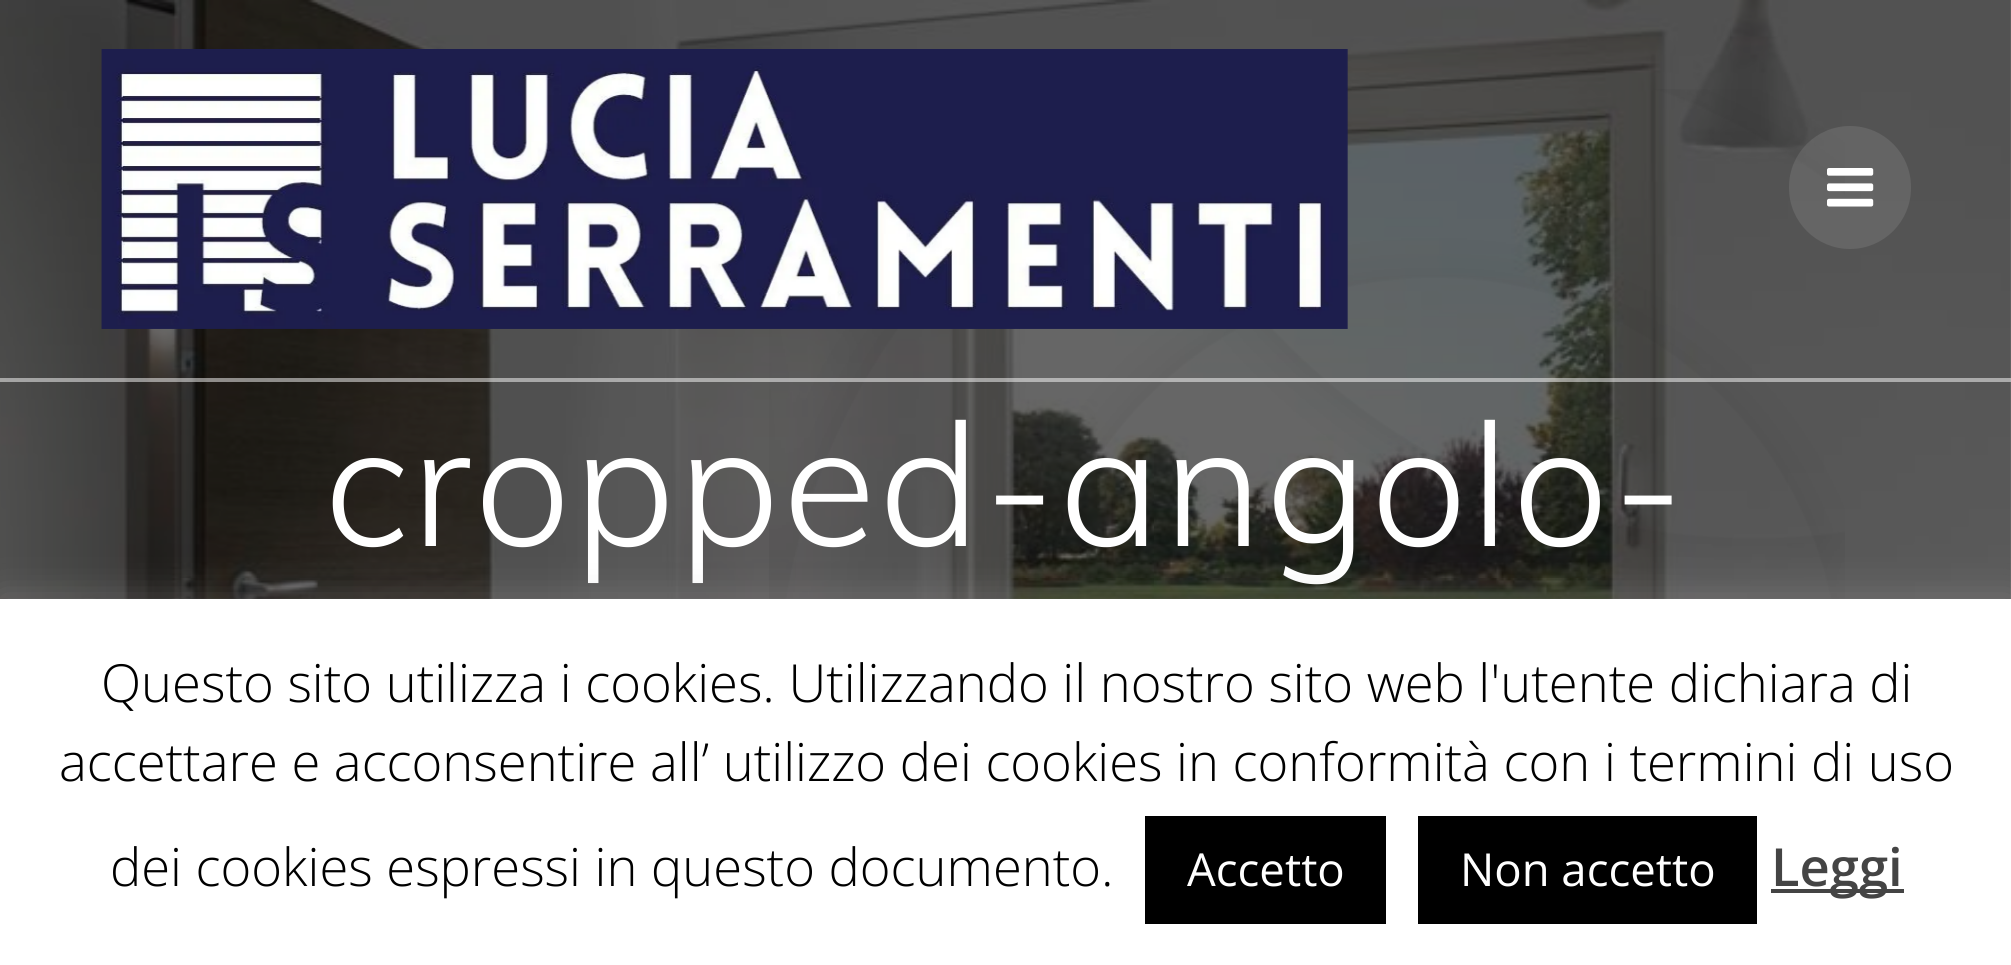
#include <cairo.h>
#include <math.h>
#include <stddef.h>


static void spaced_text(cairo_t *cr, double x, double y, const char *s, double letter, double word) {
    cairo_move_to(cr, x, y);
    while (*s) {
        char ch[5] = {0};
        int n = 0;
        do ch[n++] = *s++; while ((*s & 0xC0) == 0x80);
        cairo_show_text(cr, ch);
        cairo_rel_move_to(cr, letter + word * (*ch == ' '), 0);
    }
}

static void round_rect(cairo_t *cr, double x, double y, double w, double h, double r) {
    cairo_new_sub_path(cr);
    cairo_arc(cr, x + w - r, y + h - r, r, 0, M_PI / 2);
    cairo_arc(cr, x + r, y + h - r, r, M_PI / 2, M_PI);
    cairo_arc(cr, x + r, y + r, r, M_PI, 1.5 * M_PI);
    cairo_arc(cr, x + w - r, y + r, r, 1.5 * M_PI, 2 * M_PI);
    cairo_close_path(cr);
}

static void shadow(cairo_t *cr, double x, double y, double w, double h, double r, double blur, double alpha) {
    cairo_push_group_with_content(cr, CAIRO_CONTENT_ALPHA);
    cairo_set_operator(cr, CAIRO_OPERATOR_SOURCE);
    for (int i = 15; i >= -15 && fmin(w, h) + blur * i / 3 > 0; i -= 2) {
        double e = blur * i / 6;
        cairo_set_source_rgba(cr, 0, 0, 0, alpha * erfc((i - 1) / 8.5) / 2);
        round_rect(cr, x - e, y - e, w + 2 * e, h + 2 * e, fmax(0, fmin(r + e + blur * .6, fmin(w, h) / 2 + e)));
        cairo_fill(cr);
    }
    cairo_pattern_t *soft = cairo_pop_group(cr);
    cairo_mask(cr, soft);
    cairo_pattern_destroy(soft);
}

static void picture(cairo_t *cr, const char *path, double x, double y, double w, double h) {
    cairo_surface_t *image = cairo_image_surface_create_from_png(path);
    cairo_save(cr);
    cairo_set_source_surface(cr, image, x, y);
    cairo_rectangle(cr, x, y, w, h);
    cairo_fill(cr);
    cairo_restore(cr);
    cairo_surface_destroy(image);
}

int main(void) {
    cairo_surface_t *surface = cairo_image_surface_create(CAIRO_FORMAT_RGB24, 2011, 965);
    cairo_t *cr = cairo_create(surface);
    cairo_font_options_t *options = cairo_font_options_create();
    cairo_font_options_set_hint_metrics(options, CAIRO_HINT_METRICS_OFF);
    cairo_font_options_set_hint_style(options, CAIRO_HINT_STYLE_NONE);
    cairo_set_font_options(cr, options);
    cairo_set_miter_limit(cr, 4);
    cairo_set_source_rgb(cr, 1, 1, 1);
    cairo_paint(cr);
    picture(cr, "img3.png", 0, 0, 2011, 599);
    picture(cr, "img4.png", 769, 89, 1076, 510);
    cairo_set_source_rgba(cr, 1, 1, 1, 0.5);
    cairo_rectangle(cr, 0, 378, 2011, 4);
    cairo_fill(cr);
    picture(cr, "img1.png", 101, 49, 1247, 280);
    cairo_set_source_rgba(cr, 1, 1, 1, 0.1);
    round_rect(cr, 1789, 126, 122, 123, 61);
    cairo_fill(cr);
    picture(cr, "img2.png", 1827, 168, 47, 39);
    cairo_select_font_face(cr, "Muli Light", CAIRO_FONT_SLANT_NORMAL, CAIRO_FONT_WEIGHT_NORMAL);
    cairo_set_font_size(cr, 171.5);
    cairo_set_source_rgb(cr, 1, 1, 1);
    spaced_text(cr, 324, 546, "cropped-angolo-", 3.1, 0);
    cairo_set_source_rgb(cr, 0.675, 0.671, 0.671);
    shadow(cr, 0, 595, 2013, 368, 0, 17.5, 0.3);
    cairo_set_source_rgb(cr, 1, 1, 1);
    cairo_rectangle(cr, 0, 599, 2011, 366);
    cairo_fill(cr);
    cairo_select_font_face(cr, "Open Sans Light", CAIRO_FONT_SLANT_NORMAL, CAIRO_FONT_WEIGHT_NORMAL);
    cairo_set_font_size(cr, 52.5);
    cairo_set_source_rgb(cr, 0, 0, 0);
    cairo_move_to(cr, 101, 702);
    cairo_show_text(cr, "Questo sito utilizza i cookies. Utilizzando il nostro sito web l'utente dichiara di");
    cairo_move_to(cr, 59, 781);
    cairo_show_text(cr, "accettare e acconsentire all’ utilizzo dei cookies in conformità con i termini di uso");
    cairo_move_to(cr, 110, 886);
    cairo_show_text(cr, "dei cookies espressi in questo documento.");
    cairo_rectangle(cr, 1145, 816, 241, 108);
    cairo_fill(cr);
    cairo_select_font_face(cr, "Open Sans", CAIRO_FONT_SLANT_NORMAL, CAIRO_FONT_WEIGHT_NORMAL);
    cairo_set_font_size(cr, 45.5);
    cairo_set_source_rgb(cr, 1, 1, 1);
    cairo_move_to(cr, 1187, 886);
    cairo_show_text(cr, "Accetto");
    cairo_set_source_rgb(cr, 0, 0, 0);
    cairo_rectangle(cr, 1418, 816, 339, 108);
    cairo_fill(cr);
    cairo_set_source_rgb(cr, 1, 1, 1);
    cairo_move_to(cr, 1460, 886);
    cairo_show_text(cr, "Non accetto");
    cairo_set_source_rgb(cr, 0.267, 0.267, 0.267);
    cairo_rectangle(cr, 1771, 889, 133, 4);
    cairo_fill(cr);
    cairo_select_font_face(cr, "Open Sans SemiBold", CAIRO_FONT_SLANT_NORMAL, CAIRO_FONT_WEIGHT_NORMAL);
    cairo_set_font_size(cr, 52.5);
    cairo_move_to(cr, 1771, 886);
    cairo_show_text(cr, "Leggi");
    cairo_surface_write_to_png(surface, "page.png");
    cairo_font_options_destroy(options);
    cairo_destroy(cr);
    cairo_surface_destroy(surface);
    return 0;
}
